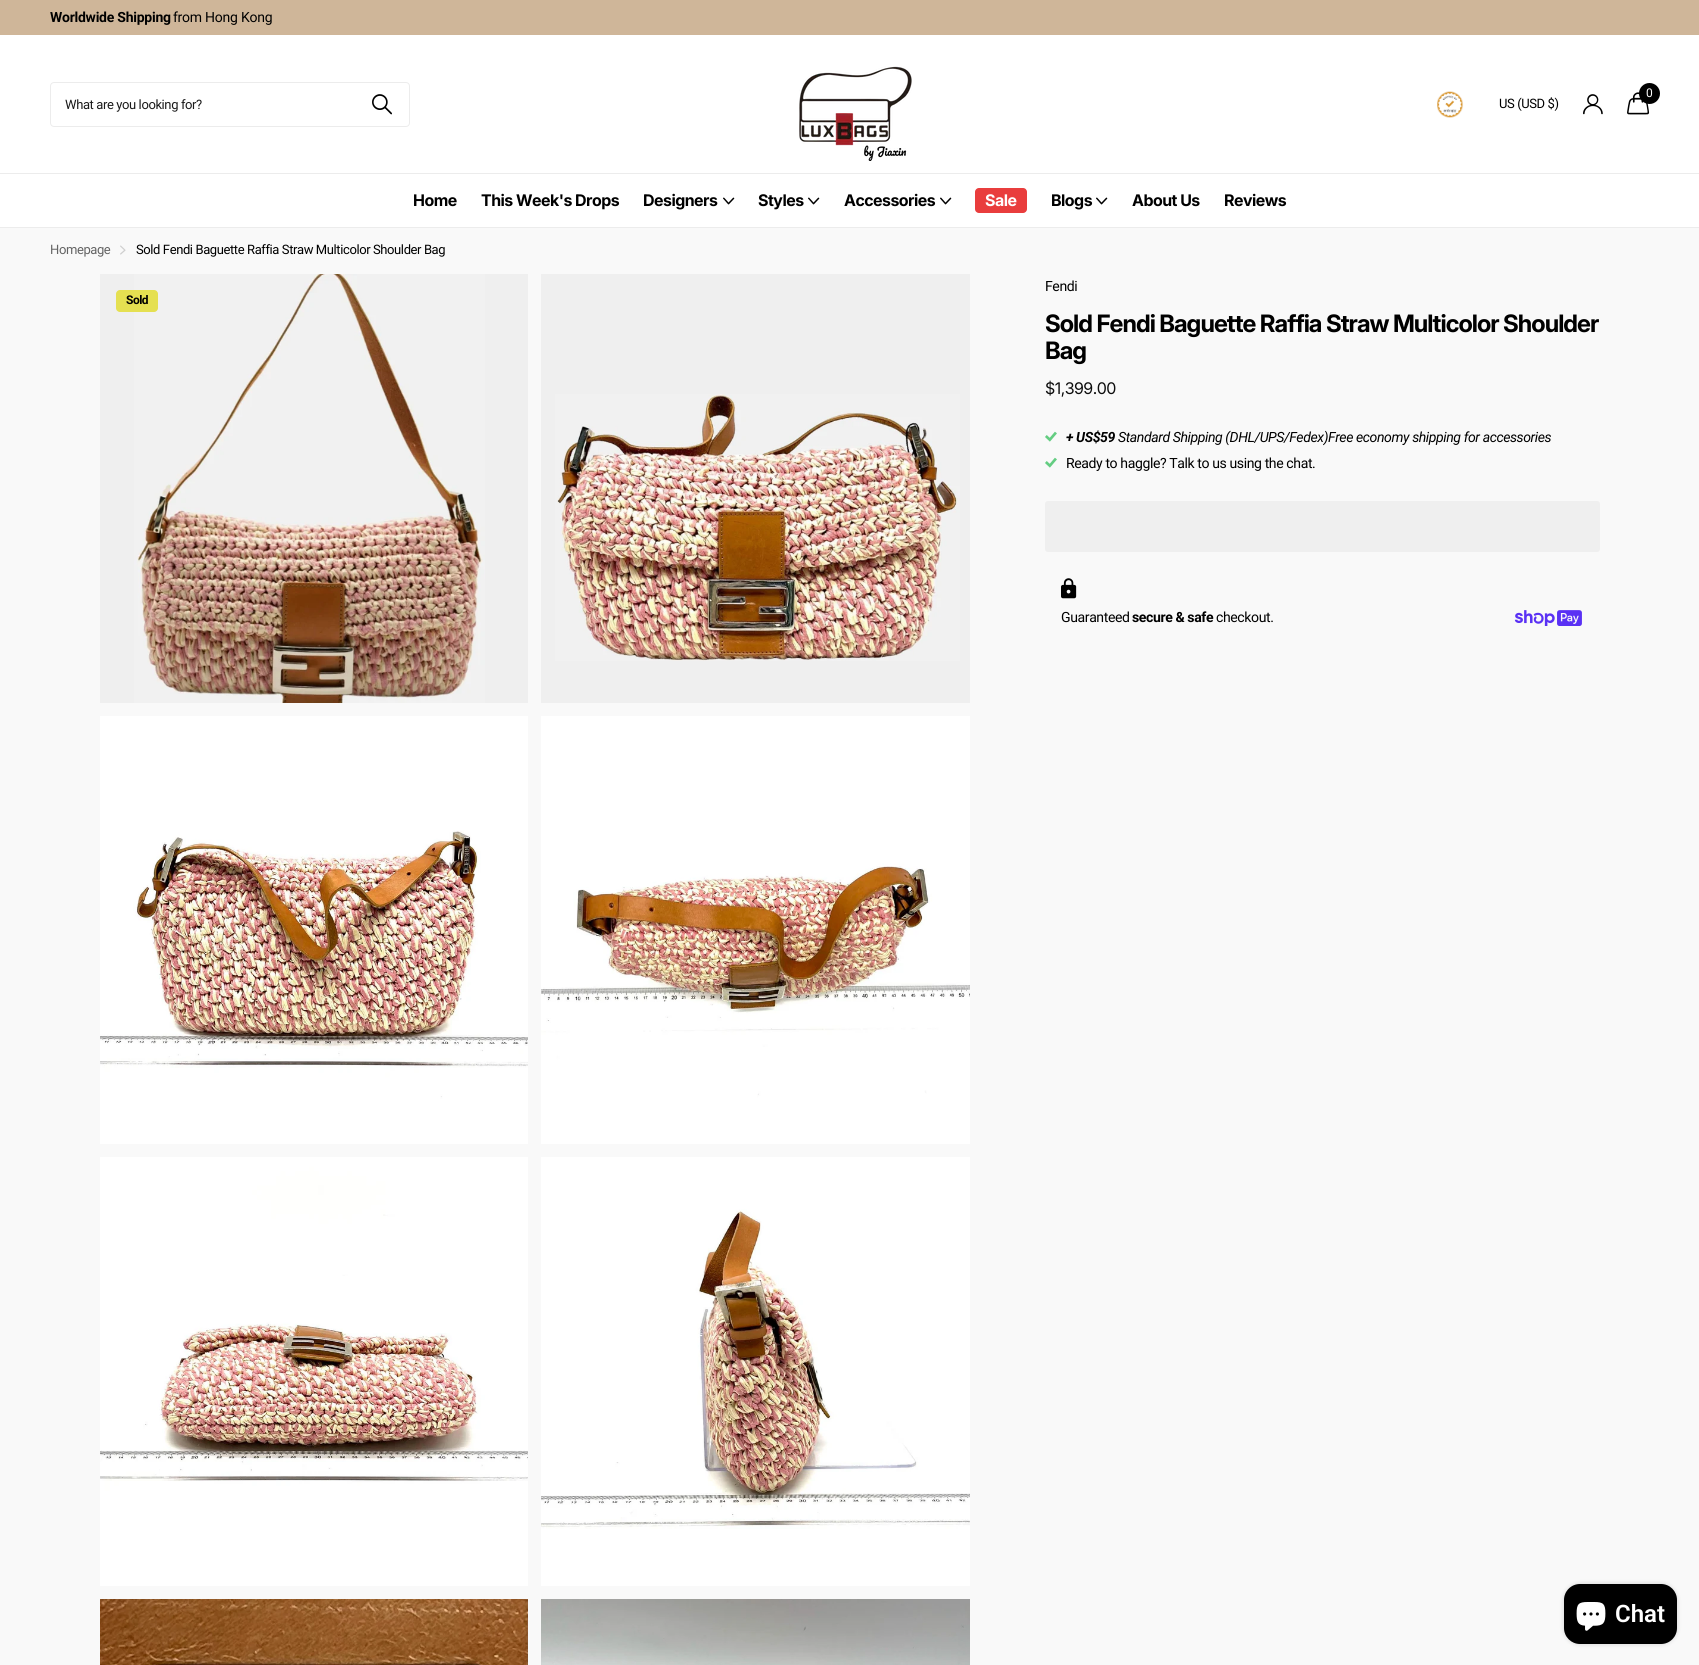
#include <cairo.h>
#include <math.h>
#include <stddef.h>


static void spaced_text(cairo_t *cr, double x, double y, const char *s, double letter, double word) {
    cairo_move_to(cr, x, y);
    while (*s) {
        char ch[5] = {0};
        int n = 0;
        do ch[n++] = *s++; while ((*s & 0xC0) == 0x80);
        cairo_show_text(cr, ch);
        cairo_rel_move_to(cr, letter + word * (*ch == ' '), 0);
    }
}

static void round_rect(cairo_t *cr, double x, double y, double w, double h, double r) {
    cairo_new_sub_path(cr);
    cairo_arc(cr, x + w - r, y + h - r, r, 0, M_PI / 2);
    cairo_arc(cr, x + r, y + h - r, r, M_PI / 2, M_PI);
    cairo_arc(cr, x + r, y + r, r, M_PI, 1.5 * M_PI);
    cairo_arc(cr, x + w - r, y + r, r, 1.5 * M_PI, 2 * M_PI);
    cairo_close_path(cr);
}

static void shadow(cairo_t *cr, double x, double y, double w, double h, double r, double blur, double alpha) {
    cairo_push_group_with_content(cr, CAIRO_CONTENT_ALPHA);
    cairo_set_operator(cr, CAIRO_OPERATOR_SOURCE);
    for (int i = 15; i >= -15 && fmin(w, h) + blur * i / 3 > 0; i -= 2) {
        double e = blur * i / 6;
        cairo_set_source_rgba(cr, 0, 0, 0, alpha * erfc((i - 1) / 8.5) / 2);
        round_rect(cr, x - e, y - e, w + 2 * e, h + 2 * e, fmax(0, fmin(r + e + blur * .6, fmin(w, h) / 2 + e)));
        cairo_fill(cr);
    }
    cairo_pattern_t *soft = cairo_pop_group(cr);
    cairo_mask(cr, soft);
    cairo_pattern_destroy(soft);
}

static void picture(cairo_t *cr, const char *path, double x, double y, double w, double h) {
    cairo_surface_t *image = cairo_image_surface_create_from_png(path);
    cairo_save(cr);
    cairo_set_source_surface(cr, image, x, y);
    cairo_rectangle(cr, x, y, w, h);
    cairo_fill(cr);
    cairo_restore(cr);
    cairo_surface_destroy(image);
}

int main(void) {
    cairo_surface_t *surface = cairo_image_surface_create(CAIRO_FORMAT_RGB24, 1699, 1665);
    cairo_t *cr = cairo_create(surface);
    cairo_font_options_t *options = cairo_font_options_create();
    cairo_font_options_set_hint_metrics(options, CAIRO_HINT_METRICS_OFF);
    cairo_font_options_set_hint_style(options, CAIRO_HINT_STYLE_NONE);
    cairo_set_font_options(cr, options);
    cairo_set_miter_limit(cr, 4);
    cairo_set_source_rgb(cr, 0.976, 0.976, 0.976);
    cairo_paint(cr);
    cairo_set_source_rgb(cr, 0.812, 0.714, 0.6);
    cairo_rectangle(cr, 0, 0, 1699, 35);
    cairo_fill(cr);
    cairo_select_font_face(cr, "Roboto", CAIRO_FONT_SLANT_NORMAL, CAIRO_FONT_WEIGHT_BOLD);
    cairo_set_font_size(cr, 14);
    cairo_set_source_rgb(cr, 0, 0, 0);
    spaced_text(cr, 50, 22, "Worldwide Shipping", -0.25, 0);
    cairo_select_font_face(cr, "Roboto", CAIRO_FONT_SLANT_NORMAL, CAIRO_FONT_WEIGHT_NORMAL);
    spaced_text(cr, 173, 22, "from Hong Kong", -0.25, 0);
    cairo_set_source_rgb(cr, 1, 1, 1);
    cairo_rectangle(cr, 0, 35, 1699, 192);
    cairo_fill(cr);
    cairo_set_source_rgb(cr, 0.925, 0.925, 0.925);
    cairo_rectangle(cr, 0, 227, 1699, 1);
    cairo_fill(cr);
    round_rect(cr, 50.5, 82.5, 359, 44, 3.5);
    cairo_set_line_width(cr, 1);
    cairo_stroke(cr);
    cairo_set_font_size(cr, 13);
    cairo_set_source_rgb(cr, 0.102, 0.102, 0.102);
    spaced_text(cr, 65, 109, "What are you looking for?", -0.4, 0);
    picture(cr, "img1.png", 372, 94, 20, 21);
    picture(cr, "img2.png", 799, 66, 113, 95);
    picture(cr, "img3.png", 1437, 91, 27, 27);
    cairo_set_source_rgb(cr, 0, 0, 0);
    spaced_text(cr, 1499, 108, "US (USD $)", -0.4, 0);
    picture(cr, "img4.png", 1583, 94, 20, 21);
    picture(cr, "img5.png", 1627, 92, 23, 23);
    cairo_arc(cr, 1649.5, 93.5, 10.5, 0, 2 * M_PI);
    cairo_fill(cr);
    cairo_set_font_size(cr, 12);
    cairo_set_source_rgb(cr, 1, 1, 1);
    cairo_move_to(cr, 1646, 97);
    cairo_show_text(cr, "0");
    cairo_set_source_rgb(cr, 0.925, 0.925, 0.925);
    cairo_rectangle(cr, 0, 173, 1699, 1);
    cairo_fill(cr);
    cairo_select_font_face(cr, "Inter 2", CAIRO_FONT_SLANT_NORMAL, CAIRO_FONT_WEIGHT_BOLD);
    cairo_set_font_size(cr, 16);
    cairo_set_source_rgb(cr, 0, 0, 0);
    spaced_text(cr, 413, 206, "Home", -0.5, 0);
    spaced_text(cr, 481, 206, "This Week's Drops", -0.5, 0);
    spaced_text(cr, 643, 206, "Designers", -0.5, 0);
    picture(cr, "img6.png", 723, 197, 12, 8);
    spaced_text(cr, 758, 206, "Styles", -0.5, 0);
    picture(cr, "img6.png", 808, 197, 12, 8);
    spaced_text(cr, 844, 206, "Accessories", -0.5, 0);
    picture(cr, "img6.png", 940, 197, 12, 8);
    cairo_set_source_rgb(cr, 0.914, 0.239, 0.239);
    round_rect(cr, 975, 188, 52, 25, 4);
    cairo_fill(cr);
    cairo_set_source_rgb(cr, 1, 1, 1);
    spaced_text(cr, 985, 206, "Sale", -0.5, 0);
    cairo_set_source_rgb(cr, 0, 0, 0);
    spaced_text(cr, 1051, 206, "Blogs", -0.5, 0);
    picture(cr, "img6.png", 1096, 197, 12, 8);
    spaced_text(cr, 1132, 206, "About Us", -0.5, 0);
    spaced_text(cr, 1224, 206, "Reviews", -0.5, 0);
    cairo_select_font_face(cr, "Roboto", CAIRO_FONT_SLANT_NORMAL, CAIRO_FONT_WEIGHT_NORMAL);
    cairo_set_font_size(cr, 13);
    cairo_set_source_rgb(cr, 0.392, 0.392, 0.392);
    spaced_text(cr, 50, 254, "Homepage", -0.4, 0);
    picture(cr, "img7.png", 120, 245, 6, 10);
    cairo_set_source_rgb(cr, 0, 0, 0);
    spaced_text(cr, 136, 254, "Sold Fendi Baguette Raffia Straw Multicolor Shoulder Bag", -0.4, 0);
    cairo_set_source_rgb(cr, 0.937, 0.937, 0.937);
    cairo_rectangle(cr, 100, 274, 428, 429);
    cairo_fill(cr);
    picture(cr, "img8.png", 134, 274, 351, 429);
    cairo_set_source_rgb(cr, 0.898, 0.878, 0.318);
    round_rect(cr, 116, 290, 42, 22, 4);
    cairo_fill(cr);
    cairo_select_font_face(cr, "Roboto", CAIRO_FONT_SLANT_NORMAL, CAIRO_FONT_WEIGHT_BOLD);
    cairo_set_font_size(cr, 12);
    cairo_set_source_rgb(cr, 0, 0, 0);
    spaced_text(cr, 126, 304, "Sold", -0.5, 0);
    cairo_set_source_rgb(cr, 0.937, 0.937, 0.937);
    cairo_rectangle(cr, 541, 274, 429, 429);
    cairo_fill(cr);
    picture(cr, "img9.png", 555, 394, 405, 267);
    picture(cr, "img10.png", 100, 716, 428, 428);
    picture(cr, "img11.png", 541, 716, 429, 428);
    picture(cr, "img12.png", 100, 1157, 428, 429);
    picture(cr, "img13.png", 541, 1157, 429, 429);
    picture(cr, "img14.png", 100, 1599, 428, 66);
    picture(cr, "img15.png", 541, 1599, 429, 66);
    cairo_select_font_face(cr, "Roboto", CAIRO_FONT_SLANT_NORMAL, CAIRO_FONT_WEIGHT_NORMAL);
    cairo_set_font_size(cr, 14.05);
    cairo_set_source_rgb(cr, 0, 0, 0);
    spaced_text(cr, 1045, 291, "Fendi", -0.4, 0);
    cairo_select_font_face(cr, "Inter", CAIRO_FONT_SLANT_NORMAL, CAIRO_FONT_WEIGHT_BOLD);
    cairo_set_font_size(cr, 24);
    spaced_text(cr, 1045, 332, "Sold Fendi Baguette Raffia Straw Multicolor Shoulder", -0.95, 0);
    spaced_text(cr, 1045, 359, "Bag", -0.95, 0);
    cairo_select_font_face(cr, "Inter", CAIRO_FONT_SLANT_NORMAL, CAIRO_FONT_WEIGHT_NORMAL);
    cairo_set_font_size(cr, 16);
    cairo_set_source_rgb(cr, 0.055, 0.055, 0.055);
    spaced_text(cr, 1045, 394, "$1,399.00", -0.5, 0);
    picture(cr, "img16.png", 1045, 431, 12, 11);
    cairo_select_font_face(cr, "Roboto", CAIRO_FONT_SLANT_ITALIC, CAIRO_FONT_WEIGHT_BOLD);
    cairo_set_font_size(cr, 14.05);
    cairo_set_source_rgb(cr, 0, 0, 0);
    spaced_text(cr, 1066, 442, "+ US$59", -0.4, 0);
    cairo_select_font_face(cr, "Roboto", CAIRO_FONT_SLANT_ITALIC, CAIRO_FONT_WEIGHT_NORMAL);
    spaced_text(cr, 1118, 442, "Standard Shipping (DHL/UPS/Fedex)Free economy shipping for accessories", -0.4, 0);
    picture(cr, "img16.png", 1045, 457, 12, 11);
    cairo_select_font_face(cr, "Roboto", CAIRO_FONT_SLANT_NORMAL, CAIRO_FONT_WEIGHT_NORMAL);
    spaced_text(cr, 1066, 468, "Ready to haggle? Talk to us using the chat.", -0.4, 0);
    cairo_set_source_rgb(cr, 0.937, 0.937, 0.937);
    round_rect(cr, 1045, 501, 555, 51, 3);
    cairo_fill(cr);
    picture(cr, "img17.png", 1061, 578, 16, 21);
    cairo_set_source_rgb(cr, 0, 0, 0);
    spaced_text(cr, 1061, 622, "Guaranteed", -0.4, 0);
    cairo_select_font_face(cr, "Roboto", CAIRO_FONT_SLANT_NORMAL, CAIRO_FONT_WEIGHT_BOLD);
    spaced_text(cr, 1132, 622, "secure & safe", -0.4, 0);
    cairo_select_font_face(cr, "Roboto", CAIRO_FONT_SLANT_NORMAL, CAIRO_FONT_WEIGHT_NORMAL);
    spaced_text(cr, 1216, 622, "checkout.", -0.4, 0);
    picture(cr, "img18.png", 1514, 610, 68, 16);
    cairo_set_source_rgb(cr, 0, 0, 0);
    shadow(cr, 1564, 1584, 113, 60, 16, 2.5, 0.15);
    cairo_set_source_rgb(cr, 0, 0, 0);
    round_rect(cr, 1564, 1584, 113, 60, 16);
    cairo_fill(cr);
    picture(cr, "img19.png", 1576, 1602, 30, 29);
    cairo_select_font_face(cr, "Roboto SemiBold", CAIRO_FONT_SLANT_NORMAL, CAIRO_FONT_WEIGHT_NORMAL);
    cairo_set_font_size(cr, 24);
    cairo_set_source_rgb(cr, 1, 1, 1);
    cairo_move_to(cr, 1615, 1622);
    cairo_show_text(cr, "Chat");
    cairo_surface_write_to_png(surface, "page.png");
    cairo_font_options_destroy(options);
    cairo_destroy(cr);
    cairo_surface_destroy(surface);
    return 0;
}
